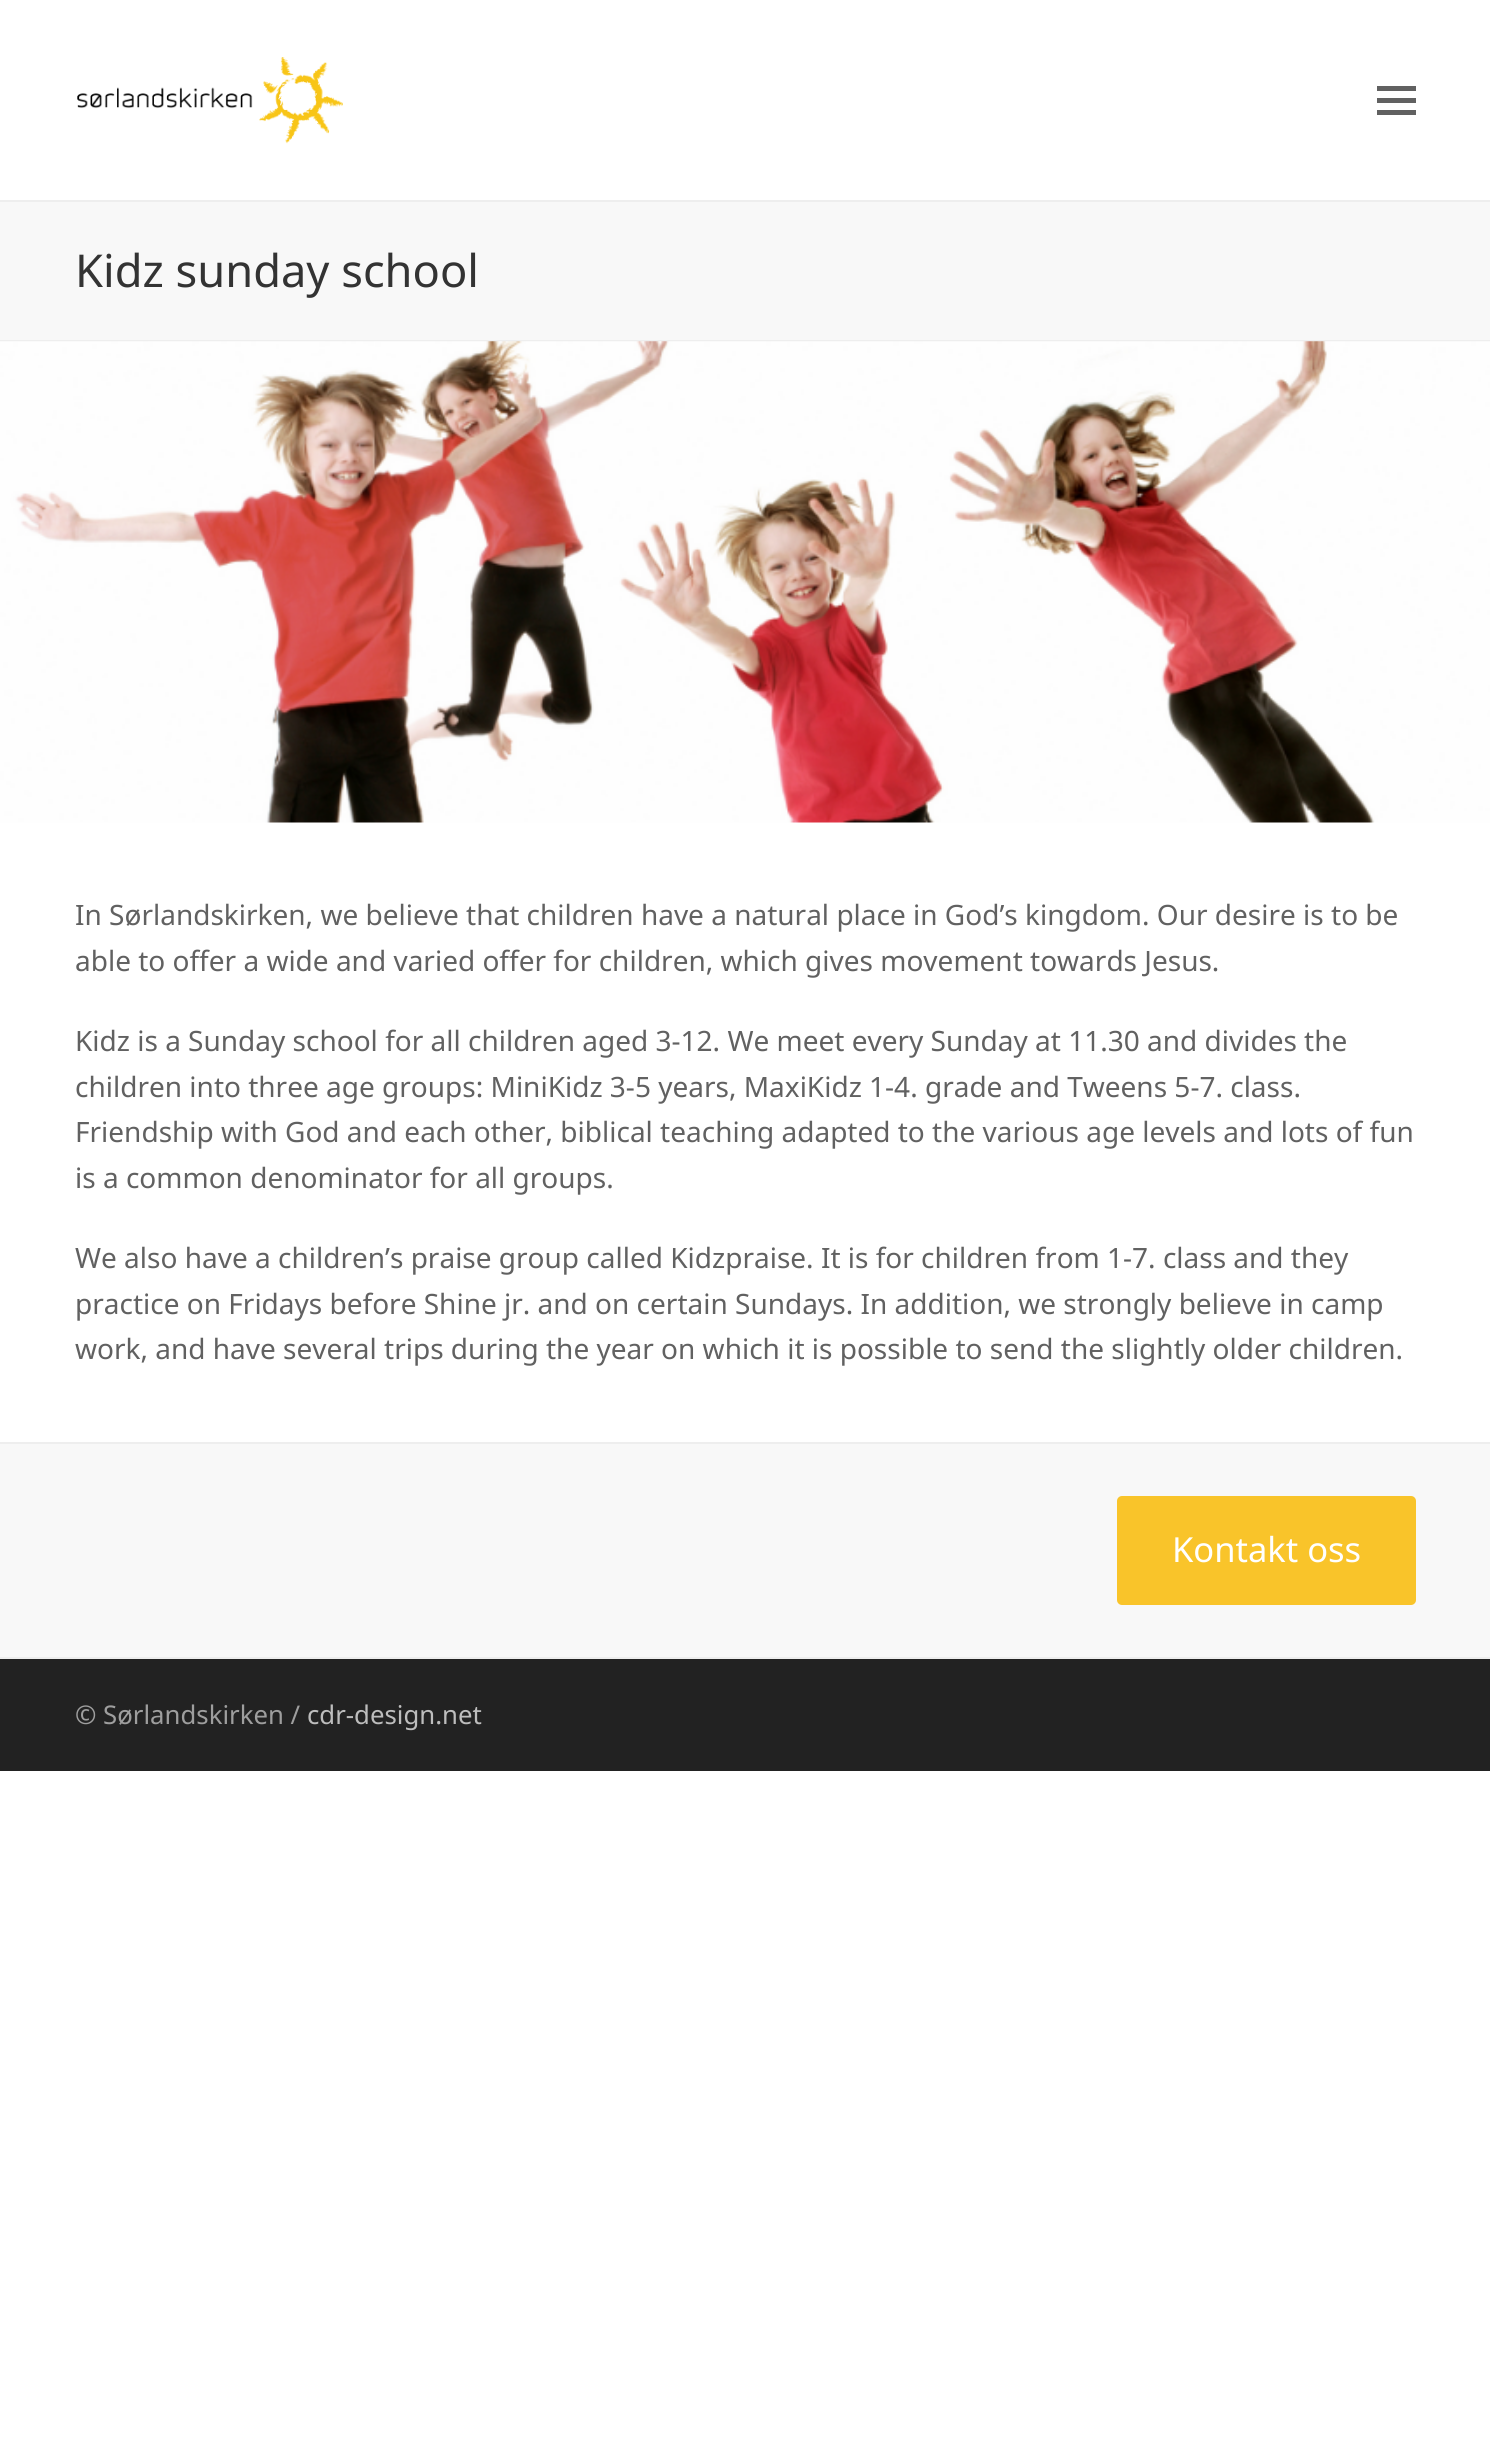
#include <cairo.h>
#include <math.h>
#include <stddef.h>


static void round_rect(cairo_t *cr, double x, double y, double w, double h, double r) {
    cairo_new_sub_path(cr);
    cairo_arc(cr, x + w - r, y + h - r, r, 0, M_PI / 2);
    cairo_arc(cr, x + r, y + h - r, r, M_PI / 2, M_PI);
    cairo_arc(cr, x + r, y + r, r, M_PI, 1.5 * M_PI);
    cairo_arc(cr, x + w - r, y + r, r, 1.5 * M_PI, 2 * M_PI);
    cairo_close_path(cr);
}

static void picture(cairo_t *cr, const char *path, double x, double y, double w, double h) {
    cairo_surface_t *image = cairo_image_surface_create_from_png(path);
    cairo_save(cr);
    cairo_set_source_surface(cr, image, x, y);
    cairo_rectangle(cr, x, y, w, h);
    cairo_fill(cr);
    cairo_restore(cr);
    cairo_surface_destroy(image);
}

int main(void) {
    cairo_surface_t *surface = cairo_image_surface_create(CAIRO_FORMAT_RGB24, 1490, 2456);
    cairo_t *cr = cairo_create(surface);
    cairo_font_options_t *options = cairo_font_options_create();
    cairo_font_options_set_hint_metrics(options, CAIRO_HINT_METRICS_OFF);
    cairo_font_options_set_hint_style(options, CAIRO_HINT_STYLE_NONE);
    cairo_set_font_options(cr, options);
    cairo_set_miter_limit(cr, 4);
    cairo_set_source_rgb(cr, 1, 1, 1);
    cairo_paint(cr);
    picture(cr, "img1.png", 77, 57, 266, 87);
    cairo_set_source_rgb(cr, 0.38, 0.38, 0.38);
    cairo_rectangle(cr, 1377, 98, 39, 5);
    cairo_fill(cr);
    cairo_rectangle(cr, 1377, 86, 39, 5);
    cairo_fill(cr);
    cairo_rectangle(cr, 1377, 110, 39, 5);
    cairo_fill(cr);
    cairo_set_source_rgb(cr, 0.969, 0.969, 0.969);
    cairo_rectangle(cr, 0, 202, 1490, 138);
    cairo_fill(cr);
    cairo_set_source_rgb(cr, 0.933, 0.933, 0.933);
    cairo_rectangle(cr, 0, 200, 1490, 2);
    cairo_fill(cr);
    cairo_rectangle(cr, 0, 340, 1490, 2);
    cairo_fill(cr);
    cairo_select_font_face(cr, "Noto Sans", CAIRO_FONT_SLANT_NORMAL, CAIRO_FONT_WEIGHT_NORMAL);
    cairo_set_font_size(cr, 45.25);
    cairo_set_source_rgb(cr, 0.2, 0.2, 0.2);
    cairo_move_to(cr, 75, 287);
    cairo_show_text(cr, "Kidz sunday school");
    picture(cr, "img2.png", 0, 341, 1490, 482);
    cairo_set_font_size(cr, 28);
    cairo_set_source_rgb(cr, 0.38, 0.38, 0.38);
    cairo_move_to(cr, 75, 925);
    cairo_show_text(cr, "In Sørlandskirken, we believe that children have a natural place in God’s kingdom. Our desire is to be");
    cairo_move_to(cr, 75, 971);
    cairo_show_text(cr, "able to offer a wide and varied offer for children, which gives movement towards Jesus.");
    cairo_move_to(cr, 75, 1051);
    cairo_show_text(cr, "Kidz is a Sunday school for all children aged 3-12. We meet every Sunday at 11.30 and divides the");
    cairo_move_to(cr, 75, 1097);
    cairo_show_text(cr, "children into three age groups: MiniKidz 3-5 years, MaxiKidz 1-4. grade and Tweens 5-7. class.");
    cairo_move_to(cr, 75, 1142);
    cairo_show_text(cr, "Friendship with God and each other, biblical teaching adapted to the various age levels and lots of fun");
    cairo_move_to(cr, 75, 1188);
    cairo_show_text(cr, "is a common denominator for all groups.");
    cairo_move_to(cr, 75, 1268);
    cairo_show_text(cr, "We also have a children’s praise group called Kidzpraise. It is for children from 1-7. class and they");
    cairo_move_to(cr, 75, 1314);
    cairo_show_text(cr, "practice on Fridays before Shine jr. and on certain Sundays. In addition, we strongly believe in camp");
    cairo_move_to(cr, 75, 1359);
    cairo_show_text(cr, "work, and have several trips during the year on which it is possible to send the slightly older children.");
    cairo_set_source_rgb(cr, 0.969, 0.969, 0.969);
    cairo_rectangle(cr, 0, 1444, 1490, 213);
    cairo_fill(cr);
    cairo_set_source_rgb(cr, 0.933, 0.933, 0.933);
    cairo_rectangle(cr, 0, 1442, 1490, 2);
    cairo_fill(cr);
    cairo_rectangle(cr, 0, 1657, 1490, 2);
    cairo_fill(cr);
    cairo_set_source_rgb(cr, 0.973, 0.769, 0.165);
    round_rect(cr, 1117, 1496, 299, 109, 5);
    cairo_fill(cr);
    cairo_set_font_size(cr, 34.5);
    cairo_set_source_rgb(cr, 1, 1, 1);
    cairo_move_to(cr, 1172, 1562);
    cairo_show_text(cr, "Kontakt oss");
    cairo_set_source_rgb(cr, 0.133, 0.133, 0.133);
    cairo_rectangle(cr, 0, 1659, 1490, 112);
    cairo_fill(cr);
    cairo_set_font_size(cr, 25.75);
    cairo_set_source_rgb(cr, 0.62, 0.62, 0.62);
    cairo_move_to(cr, 75, 1724);
    cairo_show_text(cr, "© Sørlandskirken /");
    cairo_set_source_rgb(cr, 0.741, 0.741, 0.741);
    cairo_move_to(cr, 307, 1724);
    cairo_show_text(cr, "cdr-design.net");
    cairo_surface_write_to_png(surface, "page.png");
    cairo_font_options_destroy(options);
    cairo_destroy(cr);
    cairo_surface_destroy(surface);
    return 0;
}
